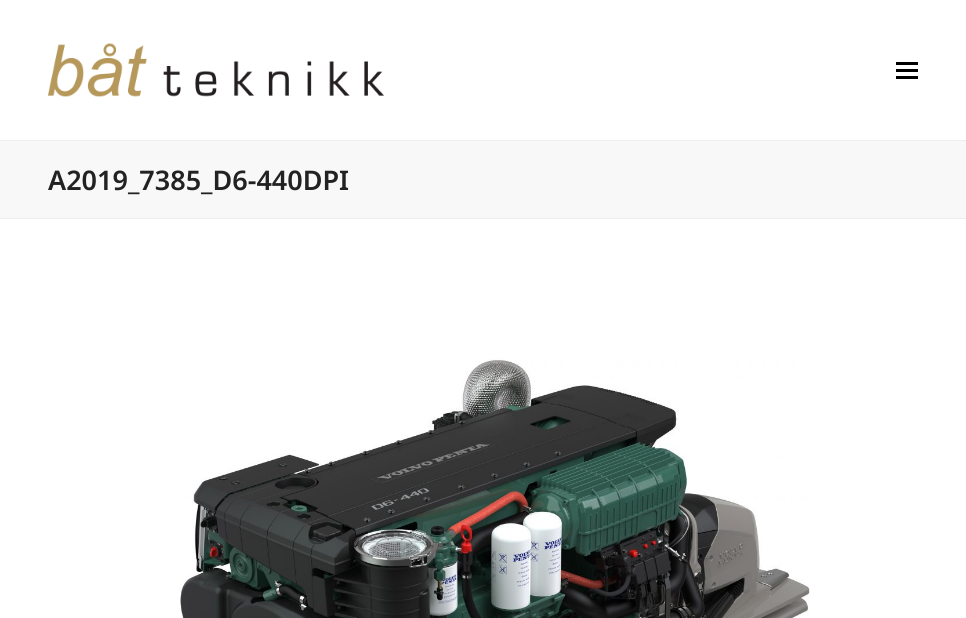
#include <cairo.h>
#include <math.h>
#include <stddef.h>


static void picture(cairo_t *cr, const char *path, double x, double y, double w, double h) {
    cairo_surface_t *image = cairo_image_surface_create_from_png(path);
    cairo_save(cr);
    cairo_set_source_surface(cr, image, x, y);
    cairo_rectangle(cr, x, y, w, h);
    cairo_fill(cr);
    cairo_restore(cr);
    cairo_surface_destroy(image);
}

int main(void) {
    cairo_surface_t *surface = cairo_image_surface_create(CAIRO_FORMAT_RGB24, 966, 618);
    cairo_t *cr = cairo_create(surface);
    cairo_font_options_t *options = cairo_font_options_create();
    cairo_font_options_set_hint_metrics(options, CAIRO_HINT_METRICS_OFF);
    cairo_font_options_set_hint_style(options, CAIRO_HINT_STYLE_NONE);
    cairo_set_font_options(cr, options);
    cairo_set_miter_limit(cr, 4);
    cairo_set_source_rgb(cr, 1, 1, 1);
    cairo_paint(cr);
    picture(cr, "img1.png", 48, 43, 336, 54);
    cairo_set_source_rgb(cr, 0, 0, 0);
    cairo_rectangle(cr, 896, 69, 22, 3);
    cairo_fill(cr);
    cairo_rectangle(cr, 896, 62, 22, 3);
    cairo_fill(cr);
    cairo_rectangle(cr, 896, 76, 22, 3);
    cairo_fill(cr);
    cairo_set_source_rgb(cr, 0.969, 0.969, 0.969);
    cairo_rectangle(cr, 0, 141, 966, 77);
    cairo_fill(cr);
    cairo_set_source_rgb(cr, 0.933, 0.933, 0.933);
    cairo_rectangle(cr, 0, 140, 966, 1);
    cairo_fill(cr);
    cairo_rectangle(cr, 0, 218, 966, 1);
    cairo_fill(cr);
    cairo_select_font_face(cr, "Noto Sans SemiBold", CAIRO_FONT_SLANT_NORMAL, CAIRO_FONT_WEIGHT_NORMAL);
    cairo_set_font_size(cr, 27);
    cairo_set_source_rgb(cr, 0.133, 0.133, 0.133);
    cairo_move_to(cr, 48, 190);
    cairo_show_text(cr, "A2019_7385_D6-440DPI");
    picture(cr, "img2.png", 180, 358, 630, 260);
    cairo_surface_write_to_png(surface, "page.png");
    cairo_font_options_destroy(options);
    cairo_destroy(cr);
    cairo_surface_destroy(surface);
    return 0;
}
